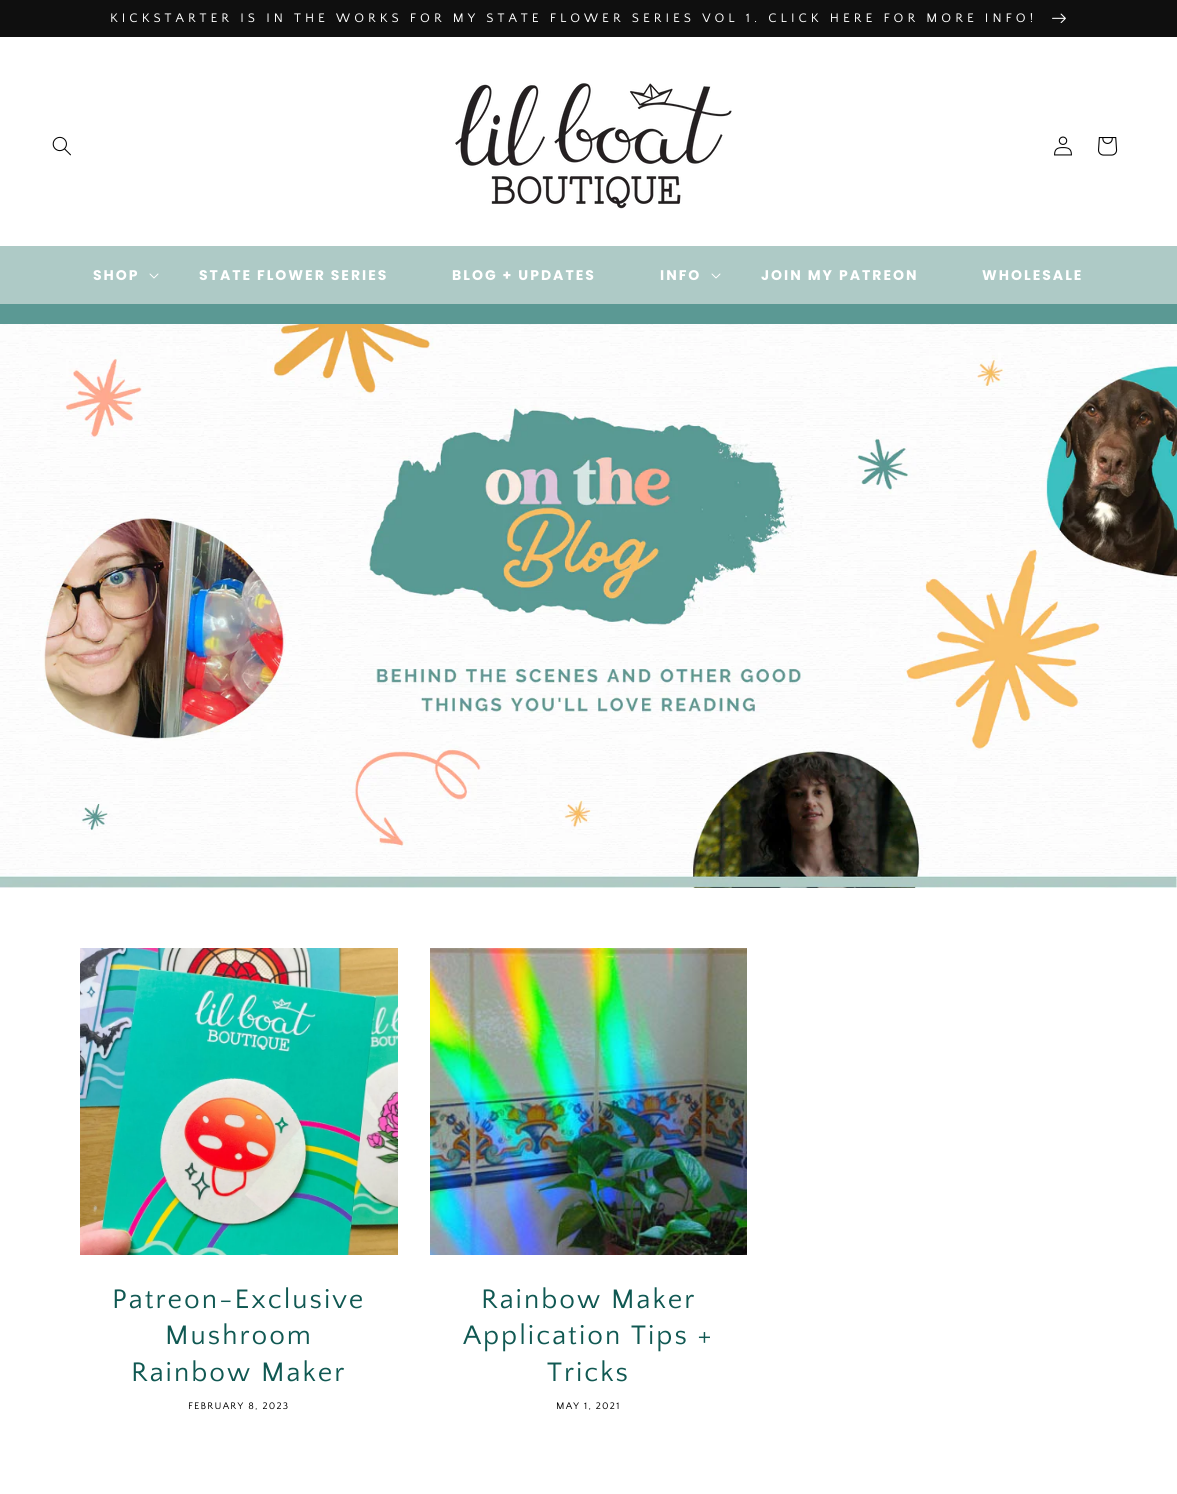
#include <cairo.h>
#include <math.h>
#include <stddef.h>


static void spaced_text(cairo_t *cr, double x, double y, const char *s, double letter, double word) {
    cairo_move_to(cr, x, y);
    while (*s) {
        char ch[5] = {0};
        int n = 0;
        do ch[n++] = *s++; while ((*s & 0xC0) == 0x80);
        cairo_show_text(cr, ch);
        cairo_rel_move_to(cr, letter + word * (*ch == ' '), 0);
    }
}

static void picture(cairo_t *cr, const char *path, double x, double y, double w, double h) {
    cairo_surface_t *image = cairo_image_surface_create_from_png(path);
    cairo_save(cr);
    cairo_set_source_surface(cr, image, x, y);
    cairo_rectangle(cr, x, y, w, h);
    cairo_fill(cr);
    cairo_restore(cr);
    cairo_surface_destroy(image);
}

int main(void) {
    cairo_surface_t *surface = cairo_image_surface_create(CAIRO_FORMAT_RGB24, 1177, 1494);
    cairo_t *cr = cairo_create(surface);
    cairo_font_options_t *options = cairo_font_options_create();
    cairo_font_options_set_hint_metrics(options, CAIRO_HINT_METRICS_OFF);
    cairo_font_options_set_hint_style(options, CAIRO_HINT_STYLE_NONE);
    cairo_set_font_options(cr, options);
    cairo_set_miter_limit(cr, 4);
    cairo_set_source_rgb(cr, 1, 1, 1);
    cairo_paint(cr);
    cairo_set_source_rgb(cr, 0.059, 0.059, 0.059);
    cairo_rectangle(cr, 0, 0, 1177, 37);
    cairo_fill(cr);
    cairo_select_font_face(cr, "Quattrocento Sans", CAIRO_FONT_SLANT_NORMAL, CAIRO_FONT_WEIGHT_NORMAL);
    cairo_set_font_size(cr, 13);
    cairo_set_source_rgb(cr, 1, 1, 1);
    spaced_text(cr, 110, 22, "KICKSTARTER IS IN THE WORKS FOR MY STATE FLOWER SERIES VOL 1. CLICK HERE FOR MORE INFO!", 4, 0);
    picture(cr, "img1.png", 1052, 13, 14, 10);
    cairo_set_source_rgb(cr, 0.357, 0.6, 0.58);
    cairo_rectangle(cr, 0, 304, 1177, 20);
    cairo_fill(cr);
    picture(cr, "img2.png", 52, 136, 19, 20);
    picture(cr, "img3.png", 455, 83, 277, 126);
    picture(cr, "img4.png", 1054, 136, 18, 20);
    picture(cr, "img5.png", 1098, 137, 20, 19);
    cairo_set_source_rgb(cr, 0.682, 0.792, 0.776);
    cairo_rectangle(cr, 0, 246, 1177, 58);
    cairo_fill(cr);
    cairo_select_font_face(cr, "Poppins", CAIRO_FONT_SLANT_NORMAL, CAIRO_FONT_WEIGHT_BOLD);
    cairo_set_font_size(cr, 14);
    cairo_set_source_rgb(cr, 1, 1, 1);
    spaced_text(cr, 93, 280, "SHOP", 2, 0);
    picture(cr, "img6.png", 149, 273, 10, 6);
    spaced_text(cr, 199, 280, "STATE FLOWER SERIES", 2, 0);
    spaced_text(cr, 452, 280, "BLOG + UPDATES", 2, 0);
    spaced_text(cr, 660, 280, "INFO", 2, 0);
    picture(cr, "img6.png", 711, 273, 10, 6);
    spaced_text(cr, 761, 280, "JOIN MY PATREON", 2, 0);
    spaced_text(cr, 982, 280, "WHOLESALE", 2, 0);
    picture(cr, "img7.png", 0, 324, 1177, 564);
    picture(cr, "img8.png", 80, 948, 318, 307);
    cairo_select_font_face(cr, "Quattrocento Sans", CAIRO_FONT_SLANT_NORMAL, CAIRO_FONT_WEIGHT_NORMAL);
    cairo_set_font_size(cr, 28);
    cairo_set_source_rgb(cr, 0.063, 0.345, 0.322);
    spaced_text(cr, 112, 1308, "Patreon-Exclusive", 2, 0);
    spaced_text(cr, 165, 1344, "Mushroom", 2, 0);
    spaced_text(cr, 131, 1381, "Rainbow Maker", 2, 0);
    cairo_set_font_size(cr, 10);
    cairo_set_source_rgb(cr, 0, 0, 0);
    spaced_text(cr, 188, 1409, "FEBRUARY 8, 2023", 1.25, 0);
    picture(cr, "img9.png", 430, 948, 317, 307);
    cairo_set_font_size(cr, 28);
    cairo_set_source_rgb(cr, 0.063, 0.345, 0.322);
    spaced_text(cr, 481, 1308, "Rainbow Maker", 2, 0);
    spaced_text(cr, 463, 1344, "Application Tips +", 2, 0);
    spaced_text(cr, 547, 1381, "Tricks", 2, 0);
    cairo_set_font_size(cr, 10);
    cairo_set_source_rgb(cr, 0, 0, 0);
    spaced_text(cr, 556, 1409, "MAY 1, 2021", 1.25, 0);
    cairo_surface_write_to_png(surface, "page.png");
    cairo_font_options_destroy(options);
    cairo_destroy(cr);
    cairo_surface_destroy(surface);
    return 0;
}
